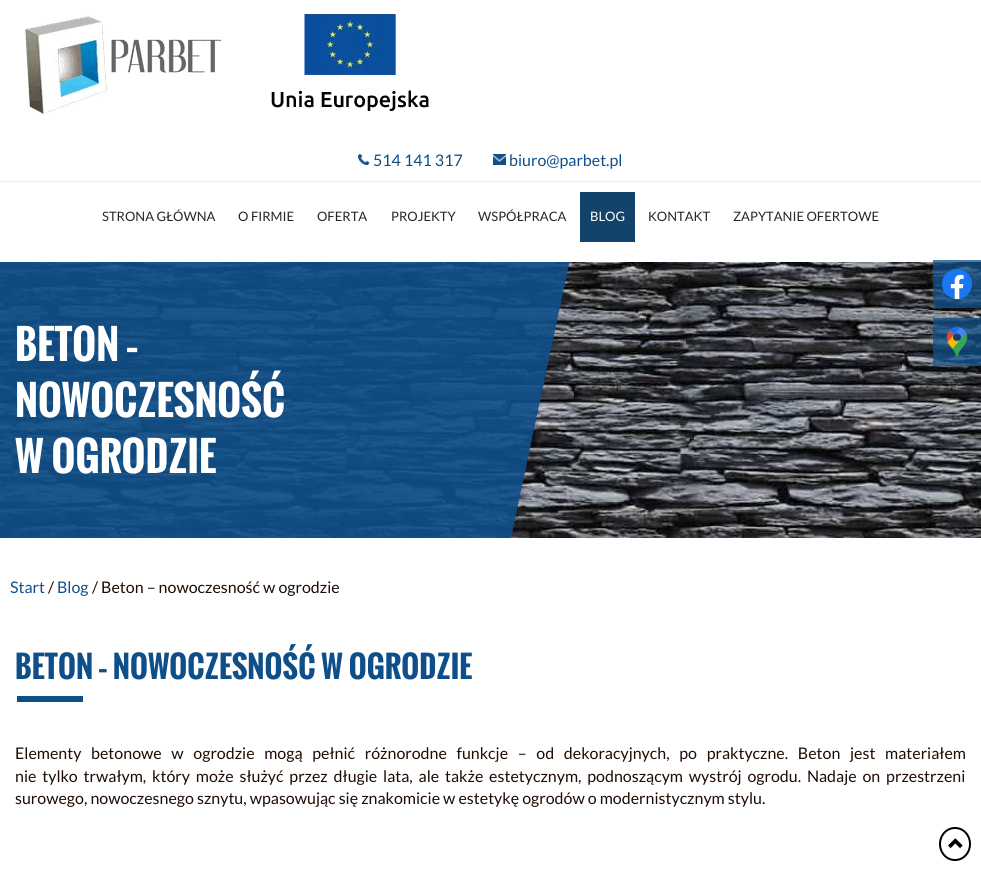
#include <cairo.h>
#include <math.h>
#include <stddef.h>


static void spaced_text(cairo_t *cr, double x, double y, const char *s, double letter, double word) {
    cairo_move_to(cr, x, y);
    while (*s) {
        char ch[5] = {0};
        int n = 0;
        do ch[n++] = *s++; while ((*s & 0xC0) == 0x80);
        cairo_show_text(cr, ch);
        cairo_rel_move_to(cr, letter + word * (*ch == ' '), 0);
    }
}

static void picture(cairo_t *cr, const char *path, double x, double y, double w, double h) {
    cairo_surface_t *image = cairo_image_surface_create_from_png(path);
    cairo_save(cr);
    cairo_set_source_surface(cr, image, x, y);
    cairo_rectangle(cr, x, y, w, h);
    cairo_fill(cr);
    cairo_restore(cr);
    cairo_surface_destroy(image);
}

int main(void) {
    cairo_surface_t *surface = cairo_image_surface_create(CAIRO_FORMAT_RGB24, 981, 878);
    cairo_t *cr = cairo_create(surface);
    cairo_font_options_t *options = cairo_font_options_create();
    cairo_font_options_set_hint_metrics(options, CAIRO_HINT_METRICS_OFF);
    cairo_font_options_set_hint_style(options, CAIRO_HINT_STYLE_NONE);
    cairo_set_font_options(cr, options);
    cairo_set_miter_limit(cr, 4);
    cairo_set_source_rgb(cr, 1, 1, 1);
    cairo_paint(cr);
    picture(cr, "img1.png", 25, 14, 404, 100);
    picture(cr, "img2.png", 358, 154, 12, 11);
    cairo_select_font_face(cr, "Lato", CAIRO_FONT_SLANT_NORMAL, CAIRO_FONT_WEIGHT_NORMAL);
    cairo_set_font_size(cr, 16);
    cairo_set_source_rgb(cr, 0.059, 0.31, 0.537);
    cairo_move_to(cr, 373, 166);
    cairo_show_text(cr, "514 141 317");
    picture(cr, "img3.png", 493, 154, 13, 11);
    cairo_move_to(cr, 509, 166);
    cairo_show_text(cr, "biuro@parbet.pl");
    cairo_set_source_rgb(cr, 0.929, 0.929, 0.929);
    cairo_rectangle(cr, 0, 181, 981, 1);
    cairo_fill(cr);
    cairo_set_font_size(cr, 13);
    cairo_set_source_rgb(cr, 0.141, 0.153, 0.145);
    cairo_move_to(cr, 102, 221);
    cairo_show_text(cr, "STRONA GŁÓWNA");
    cairo_move_to(cr, 238, 221);
    cairo_show_text(cr, "O FIRMIE");
    cairo_move_to(cr, 317, 221);
    cairo_show_text(cr, "OFERTA");
    cairo_move_to(cr, 391, 221);
    cairo_show_text(cr, "PROJEKTY");
    cairo_move_to(cr, 478, 221);
    cairo_show_text(cr, "WSPÓŁPRACA");
    cairo_set_source_rgb(cr, 0.078, 0.259, 0.42);
    cairo_rectangle(cr, 580, 192, 55, 50);
    cairo_fill(cr);
    cairo_set_source_rgb(cr, 1, 1, 1);
    cairo_move_to(cr, 590, 221);
    cairo_show_text(cr, "BLOG");
    cairo_set_source_rgb(cr, 0.141, 0.153, 0.145);
    cairo_move_to(cr, 648, 221);
    cairo_show_text(cr, "KONTAKT");
    cairo_move_to(cr, 733, 221);
    cairo_show_text(cr, "ZAPYTANIE OFERTOWE");
    picture(cr, "img5.png", 0, 262, 981, 276);
    picture(cr, "img4.png", 0, 262, 570, 276);
    cairo_select_font_face(cr, "Oswald", CAIRO_FONT_SLANT_NORMAL, CAIRO_FONT_WEIGHT_BOLD);
    cairo_set_font_size(cr, 40);
    cairo_set_source_rgb(cr, 1, 1, 1);
    cairo_move_to(cr, 15, 361);
    cairo_show_text(cr, "BETON –");
    cairo_move_to(cr, 15, 417);
    cairo_show_text(cr, "NOWOCZESNOŚĆ");
    cairo_move_to(cr, 15, 473);
    cairo_show_text(cr, "W OGRODZIE");
    cairo_select_font_face(cr, "Lato", CAIRO_FONT_SLANT_NORMAL, CAIRO_FONT_WEIGHT_NORMAL);
    cairo_set_font_size(cr, 16);
    cairo_set_source_rgb(cr, 0.059, 0.31, 0.537);
    cairo_move_to(cr, 10, 593);
    cairo_show_text(cr, "Start");
    cairo_set_source_rgb(cr, 0.118, 0.043, 0.008);
    cairo_move_to(cr, 48, 593);
    cairo_show_text(cr, "/");
    cairo_set_source_rgb(cr, 0.059, 0.31, 0.537);
    cairo_move_to(cr, 57, 593);
    cairo_show_text(cr, "Blog");
    cairo_set_source_rgb(cr, 0.118, 0.043, 0.008);
    cairo_move_to(cr, 92, 593);
    cairo_show_text(cr, "/ Beton – nowoczesność w ogrodzie");
    cairo_set_source_rgba(cr, 0.059, 0.31, 0.537, 0.75);
    cairo_rectangle(cr, 933, 260, 48, 48);
    cairo_fill(cr);
    picture(cr, "img6.png", 942, 269, 30, 30);
    cairo_rectangle(cr, 933, 318, 48, 48);
    cairo_fill(cr);
    picture(cr, "img7.png", 946, 327, 22, 30);
    cairo_select_font_face(cr, "Oswald", CAIRO_FONT_SLANT_NORMAL, CAIRO_FONT_WEIGHT_BOLD);
    cairo_set_font_size(cr, 30);
    cairo_set_source_rgb(cr, 0.059, 0.31, 0.537);
    cairo_move_to(cr, 15, 679);
    cairo_show_text(cr, "BETON – NOWOCZESNOŚĆ W OGRODZIE");
    cairo_rectangle(cr, 17, 696, 66, 6);
    cairo_fill(cr);
    cairo_select_font_face(cr, "Lato", CAIRO_FONT_SLANT_NORMAL, CAIRO_FONT_WEIGHT_NORMAL);
    cairo_set_font_size(cr, 16);
    cairo_set_source_rgb(cr, 0.118, 0.043, 0.008);
    spaced_text(cr, 15, 759, "Elementy betonowe w ogrodzie mogą pełnić różnorodne funkcje – od dekoracyjnych, po praktyczne. Beton jest materiałem", 0, 6.6);
    spaced_text(cr, 15, 782, "nie tylko trwałym, który może służyć przez długie lata, ale także estetycznym, podnoszącym wystrój ogrodu. Nadaje on przestrzeni", 0, 2.75);
    cairo_move_to(cr, 15, 804);
    cairo_show_text(cr, "surowego, nowoczesnego sznytu, wpasowując się znakomicie w estetykę ogrodów o modernistycznym stylu.");
    cairo_new_path(cr);
    cairo_move_to(cr, 955, 828);
    cairo_curve_to(cr, 963.5, 828, 970, 835, 970, 844);
    cairo_curve_to(cr, 970, 853, 963.5, 860, 955, 860);
    cairo_curve_to(cr, 946.5, 860, 940, 853, 940, 844);
    cairo_curve_to(cr, 940, 835, 946.5, 828, 955, 828);
    cairo_close_path(cr);
    cairo_set_source_rgb(cr, 0, 0, 0);
    cairo_stroke(cr);
    picture(cr, "img8.png", 948, 838, 15, 11);
    cairo_surface_write_to_png(surface, "page.png");
    cairo_font_options_destroy(options);
    cairo_destroy(cr);
    cairo_surface_destroy(surface);
    return 0;
}
